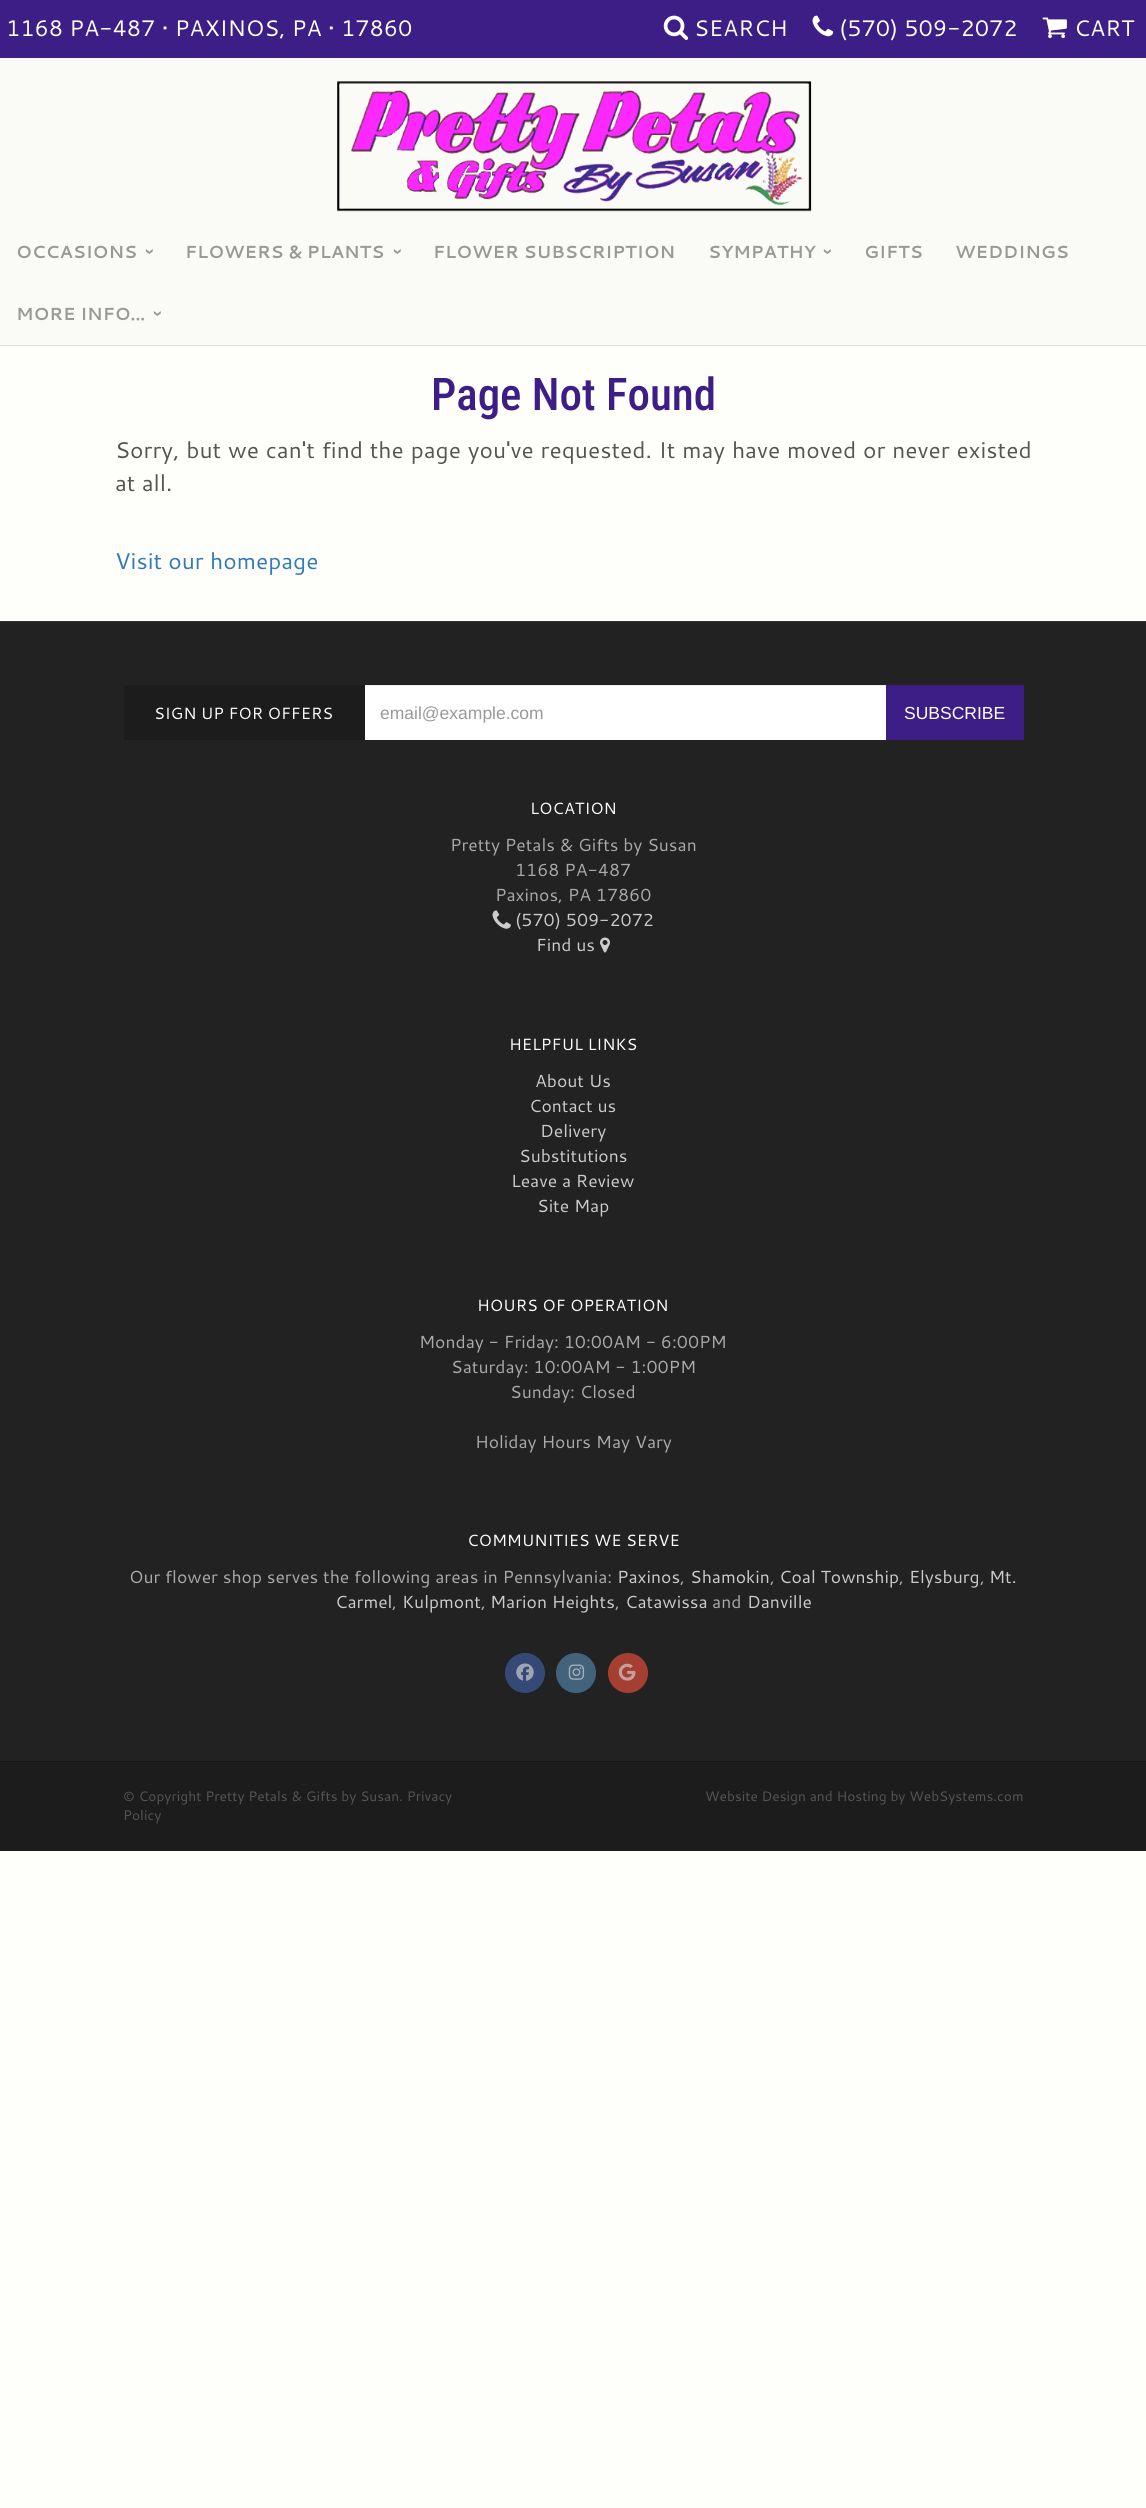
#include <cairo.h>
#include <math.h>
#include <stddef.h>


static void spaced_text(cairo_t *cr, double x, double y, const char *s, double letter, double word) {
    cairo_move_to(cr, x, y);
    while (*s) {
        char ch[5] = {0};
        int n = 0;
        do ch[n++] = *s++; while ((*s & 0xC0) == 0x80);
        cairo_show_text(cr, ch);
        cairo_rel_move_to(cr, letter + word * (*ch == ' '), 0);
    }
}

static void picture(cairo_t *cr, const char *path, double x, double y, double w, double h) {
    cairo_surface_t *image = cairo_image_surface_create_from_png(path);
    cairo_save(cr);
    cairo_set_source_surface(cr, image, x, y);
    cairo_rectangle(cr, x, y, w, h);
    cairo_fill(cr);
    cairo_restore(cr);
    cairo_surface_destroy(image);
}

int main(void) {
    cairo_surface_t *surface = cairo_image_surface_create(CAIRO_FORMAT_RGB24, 1146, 2508);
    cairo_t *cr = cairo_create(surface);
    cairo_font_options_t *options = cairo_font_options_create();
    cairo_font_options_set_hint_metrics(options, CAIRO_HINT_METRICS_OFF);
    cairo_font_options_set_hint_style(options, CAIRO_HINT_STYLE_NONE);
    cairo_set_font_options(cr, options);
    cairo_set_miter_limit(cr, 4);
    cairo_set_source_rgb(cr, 0.996, 0.996, 0.984);
    cairo_paint(cr);
    cairo_set_source_rgb(cr, 0.239, 0.118, 0.525);
    cairo_rectangle(cr, 0, 0, 1146, 58);
    cairo_fill(cr);
    cairo_select_font_face(cr, "Cantarell", CAIRO_FONT_SLANT_NORMAL, CAIRO_FONT_WEIGHT_NORMAL);
    cairo_set_font_size(cr, 22.5);
    cairo_set_source_rgb(cr, 1, 1, 1);
    cairo_move_to(cr, 6, 36);
    cairo_show_text(cr, "1168 PA-487 • PAXINOS, PA • 17860");
    picture(cr, "img1.png", 663, 15, 26, 25);
    cairo_move_to(cr, 694, 36);
    cairo_show_text(cr, "SEARCH");
    picture(cr, "img2.png", 812, 15, 22, 22);
    cairo_move_to(cr, 839, 36);
    cairo_show_text(cr, "(570) 509-2072");
    picture(cr, "img3.png", 1042, 17, 25, 22);
    cairo_move_to(cr, 1074, 36);
    cairo_show_text(cr, "CART");
    cairo_set_source_rgb(cr, 0.98, 0.98, 0.961);
    cairo_rectangle(cr, 0, 58, 1146, 287);
    cairo_fill(cr);
    picture(cr, "img4.png", 337, 81, 475, 131);
    cairo_set_source_rgb(cr, 0.882, 0.882, 0.867);
    cairo_rectangle(cr, 0, 345, 1146, 1);
    cairo_fill(cr);
    cairo_select_font_face(cr, "Cantarell", CAIRO_FONT_SLANT_NORMAL, CAIRO_FONT_WEIGHT_BOLD);
    cairo_set_font_size(cr, 17.5);
    cairo_set_source_rgb(cr, 0.6, 0.6, 0.6);
    cairo_move_to(cr, 16, 258);
    cairo_show_text(cr, "OCCASIONS");
    cairo_save(cr);
    cairo_translate(cr, 144, 249);
    cairo_rotate(cr, 90 * M_PI / 180);
    cairo_move_to(cr, 0, 0);
    cairo_show_text(cr, "›");
    cairo_restore(cr);
    cairo_move_to(cr, 185, 258);
    cairo_show_text(cr, "FLOWERS & PLANTS");
    cairo_save(cr);
    cairo_translate(cr, 392, 249);
    cairo_rotate(cr, 90 * M_PI / 180);
    cairo_move_to(cr, 0, 0);
    cairo_show_text(cr, "›");
    cairo_restore(cr);
    cairo_move_to(cr, 433, 258);
    cairo_show_text(cr, "FLOWER SUBSCRIPTION");
    cairo_move_to(cr, 708, 258);
    cairo_show_text(cr, "SYMPATHY");
    cairo_save(cr);
    cairo_translate(cr, 822, 249);
    cairo_rotate(cr, 90 * M_PI / 180);
    cairo_move_to(cr, 0, 0);
    cairo_show_text(cr, "›");
    cairo_restore(cr);
    cairo_move_to(cr, 864, 258);
    cairo_show_text(cr, "GIFTS");
    cairo_move_to(cr, 955, 258);
    cairo_show_text(cr, "WEDDINGS");
    cairo_move_to(cr, 16, 320);
    cairo_show_text(cr, "MORE INFO...");
    cairo_save(cr);
    cairo_translate(cr, 152, 311);
    cairo_rotate(cr, 90 * M_PI / 180);
    cairo_move_to(cr, 0, 0);
    cairo_show_text(cr, "›");
    cairo_restore(cr);
    cairo_select_font_face(cr, "Roboto Condensed Medium", CAIRO_FONT_SLANT_NORMAL, CAIRO_FONT_WEIGHT_NORMAL);
    cairo_set_font_size(cr, 45);
    cairo_set_source_rgb(cr, 0.239, 0.118, 0.525);
    cairo_move_to(cr, 431, 410);
    cairo_show_text(cr, "Page Not Found");
    cairo_select_font_face(cr, "Cantarell", CAIRO_FONT_SLANT_NORMAL, CAIRO_FONT_WEIGHT_NORMAL);
    cairo_set_font_size(cr, 22.75);
    cairo_set_source_rgb(cr, 0.333, 0.333, 0.333);
    spaced_text(cr, 115, 458, "Sorry, but we can't find the page you've requested. It may have moved or never existed", 0, 0.6);
    cairo_move_to(cr, 115, 491);
    cairo_show_text(cr, "at all.");
    cairo_set_source_rgb(cr, 0.2, 0.478, 0.718);
    cairo_move_to(cr, 115, 569);
    cairo_show_text(cr, "Visit our homepage");
    cairo_set_source_rgb(cr, 0.133, 0.133, 0.133);
    cairo_rectangle(cr, 0, 622, 1146, 1139);
    cairo_fill(cr);
    cairo_set_source_rgb(cr, 0.2, 0.2, 0.2);
    cairo_rectangle(cr, 0, 621, 1146, 1);
    cairo_fill(cr);
    cairo_set_source_rgb(cr, 0.11, 0.11, 0.11);
    cairo_rectangle(cr, 124, 685, 241, 55);
    cairo_fill(cr);
    cairo_set_font_size(cr, 16.25);
    cairo_set_source_rgb(cr, 1, 1, 1);
    cairo_move_to(cr, 154, 719);
    cairo_show_text(cr, "SIGN UP FOR OFFERS");
    cairo_rectangle(cr, 365, 686, 521, 54);
    cairo_fill(cr);
    cairo_set_source_rgb(cr, 0.925, 0.925, 0.925);
    cairo_rectangle(cr, 365, 685, 521, 1);
    cairo_fill(cr);
    cairo_select_font_face(cr, "Liberation Sans", CAIRO_FONT_SLANT_NORMAL, CAIRO_FONT_WEIGHT_NORMAL);
    cairo_set_font_size(cr, 17.5);
    cairo_set_source_rgb(cr, 0.6, 0.6, 0.6);
    cairo_move_to(cr, 380, 719);
    cairo_show_text(cr, "email@example.com");
    cairo_set_source_rgb(cr, 0.239, 0.118, 0.525);
    cairo_rectangle(cr, 886, 685, 138, 55);
    cairo_fill(cr);
    cairo_set_source_rgb(cr, 1, 1, 1);
    cairo_move_to(cr, 904, 719);
    cairo_show_text(cr, "SUBSCRIBE");
    cairo_select_font_face(cr, "Cantarell", CAIRO_FONT_SLANT_NORMAL, CAIRO_FONT_WEIGHT_NORMAL);
    cairo_set_font_size(cr, 16.25);
    cairo_move_to(cr, 530, 814);
    cairo_show_text(cr, "LOCATION");
    cairo_set_font_size(cr, 17.5);
    cairo_set_source_rgb(cr, 0.667, 0.667, 0.667);
    cairo_move_to(cr, 450, 851);
    cairo_show_text(cr, "Pretty Petals & Gifts by Susan");
    cairo_move_to(cr, 515, 876);
    cairo_show_text(cr, "1168 PA-487");
    cairo_move_to(cr, 495, 901);
    cairo_show_text(cr, "Paxinos, PA 17860");
    picture(cr, "img5.png", 492, 910, 19, 19);
    cairo_set_source_rgb(cr, 0.8, 0.8, 0.8);
    cairo_move_to(cr, 515, 926);
    cairo_show_text(cr, "(570) 509-2072");
    cairo_move_to(cr, 536, 951);
    cairo_show_text(cr, "Find us");
    picture(cr, "img6.png", 600, 937, 10, 16);
    cairo_set_font_size(cr, 16.25);
    cairo_set_source_rgb(cr, 1, 1, 1);
    cairo_move_to(cr, 509, 1050);
    cairo_show_text(cr, "HELPFUL LINKS");
    cairo_set_font_size(cr, 17.5);
    cairo_set_source_rgb(cr, 0.8, 0.8, 0.8);
    cairo_move_to(cr, 535, 1087);
    cairo_show_text(cr, "About Us");
    cairo_move_to(cr, 529, 1112);
    cairo_show_text(cr, "Contact us");
    cairo_move_to(cr, 540, 1137);
    cairo_show_text(cr, "Delivery");
    cairo_move_to(cr, 519, 1162);
    cairo_show_text(cr, "Substitutions");
    cairo_move_to(cr, 511, 1187);
    cairo_show_text(cr, "Leave a Review");
    cairo_move_to(cr, 537, 1212);
    cairo_show_text(cr, "Site Map");
    cairo_set_font_size(cr, 16.25);
    cairo_set_source_rgb(cr, 1, 1, 1);
    cairo_move_to(cr, 477, 1311);
    cairo_show_text(cr, "HOURS OF OPERATION");
    cairo_set_font_size(cr, 17.5);
    cairo_set_source_rgb(cr, 0.667, 0.667, 0.667);
    cairo_move_to(cr, 419, 1348);
    cairo_show_text(cr, "Monday - Friday: 10:00AM - 6:00PM");
    cairo_move_to(cr, 451, 1373);
    cairo_show_text(cr, "Saturday: 10:00AM - 1:00PM");
    cairo_move_to(cr, 510, 1398);
    cairo_show_text(cr, "Sunday: Closed");
    cairo_move_to(cr, 475, 1448);
    cairo_show_text(cr, "Holiday Hours May Vary");
    cairo_set_font_size(cr, 16.25);
    cairo_set_source_rgb(cr, 1, 1, 1);
    cairo_move_to(cr, 467, 1546);
    cairo_show_text(cr, "COMMUNITIES WE SERVE");
    cairo_set_font_size(cr, 17.5);
    cairo_set_source_rgb(cr, 0.667, 0.667, 0.667);
    cairo_move_to(cr, 129, 1583);
    cairo_show_text(cr, "Our flower shop serves the following areas in Pennsylvania:");
    cairo_set_source_rgb(cr, 0.8, 0.8, 0.8);
    cairo_move_to(cr, 617, 1583);
    cairo_show_text(cr, "Paxinos");
    cairo_set_source_rgb(cr, 0.667, 0.667, 0.667);
    cairo_move_to(cr, 680, 1583);
    cairo_show_text(cr, ",");
    cairo_set_source_rgb(cr, 0.8, 0.8, 0.8);
    cairo_move_to(cr, 690, 1583);
    cairo_show_text(cr, "Shamokin");
    cairo_set_source_rgb(cr, 0.667, 0.667, 0.667);
    cairo_move_to(cr, 770, 1583);
    cairo_show_text(cr, ",");
    cairo_set_source_rgb(cr, 0.8, 0.8, 0.8);
    cairo_move_to(cr, 779, 1583);
    cairo_show_text(cr, "Coal Township");
    cairo_set_source_rgb(cr, 0.667, 0.667, 0.667);
    cairo_move_to(cr, 899, 1583);
    cairo_show_text(cr, ",");
    cairo_set_source_rgb(cr, 0.8, 0.8, 0.8);
    cairo_move_to(cr, 909, 1583);
    cairo_show_text(cr, "Elysburg");
    cairo_set_source_rgb(cr, 0.667, 0.667, 0.667);
    cairo_move_to(cr, 980, 1583);
    cairo_show_text(cr, ",");
    cairo_set_source_rgb(cr, 0.8, 0.8, 0.8);
    cairo_move_to(cr, 989, 1583);
    cairo_show_text(cr, "Mt.");
    cairo_move_to(cr, 335, 1608);
    cairo_show_text(cr, "Carmel");
    cairo_set_source_rgb(cr, 0.667, 0.667, 0.667);
    cairo_move_to(cr, 392, 1608);
    cairo_show_text(cr, ",");
    cairo_set_source_rgb(cr, 0.8, 0.8, 0.8);
    cairo_move_to(cr, 402, 1608);
    cairo_show_text(cr, "Kulpmont");
    cairo_set_source_rgb(cr, 0.667, 0.667, 0.667);
    cairo_move_to(cr, 481, 1608);
    cairo_show_text(cr, ",");
    cairo_set_source_rgb(cr, 0.8, 0.8, 0.8);
    cairo_move_to(cr, 490, 1608);
    cairo_show_text(cr, "Marion Heights");
    cairo_set_source_rgb(cr, 0.667, 0.667, 0.667);
    cairo_move_to(cr, 615, 1608);
    cairo_show_text(cr, ",");
    cairo_set_source_rgb(cr, 0.8, 0.8, 0.8);
    cairo_move_to(cr, 625, 1608);
    cairo_show_text(cr, "Catawissa");
    cairo_set_source_rgb(cr, 0.667, 0.667, 0.667);
    cairo_move_to(cr, 712, 1608);
    cairo_show_text(cr, "and");
    cairo_set_source_rgb(cr, 0.8, 0.8, 0.8);
    cairo_move_to(cr, 747, 1608);
    cairo_show_text(cr, "Danville");
    cairo_set_source_rgb(cr, 0.204, 0.286, 0.459);
    cairo_new_path(cr);
    cairo_arc(cr, 525, 1673, 20, 0, 2 * M_PI);
    cairo_fill(cr);
    picture(cr, "img7.png", 516, 1663, 18, 18);
    cairo_set_source_rgb(cr, 0.263, 0.388, 0.49);
    cairo_arc(cr, 576, 1673, 20, 0, 2 * M_PI);
    cairo_fill(cr);
    picture(cr, "img8.png", 568, 1664, 17, 16);
    cairo_set_source_rgb(cr, 0.647, 0.247, 0.196);
    cairo_arc(cr, 628, 1673, 20, 0, 2 * M_PI);
    cairo_fill(cr);
    picture(cr, "img9.png", 618, 1663, 18, 18);
    cairo_set_source_rgb(cr, 0.11, 0.11, 0.11);
    cairo_rectangle(cr, 0, 1762, 1146, 89);
    cairo_fill(cr);
    cairo_set_source_rgb(cr, 0.086, 0.086, 0.086);
    cairo_rectangle(cr, 0, 1761, 1146, 1);
    cairo_fill(cr);
    cairo_set_font_size(cr, 13.75);
    cairo_set_source_rgb(cr, 0.333, 0.333, 0.333);
    cairo_move_to(cr, 123, 1801);
    cairo_show_text(cr, "© Copyright Pretty Petals & Gifts by Susan. Privacy");
    cairo_move_to(cr, 123, 1820);
    cairo_show_text(cr, "Policy");
    cairo_move_to(cr, 705, 1801);
    cairo_show_text(cr, "Website Design and Hosting by WebSystems.com");
    cairo_surface_write_to_png(surface, "page.png");
    cairo_font_options_destroy(options);
    cairo_destroy(cr);
    cairo_surface_destroy(surface);
    return 0;
}
